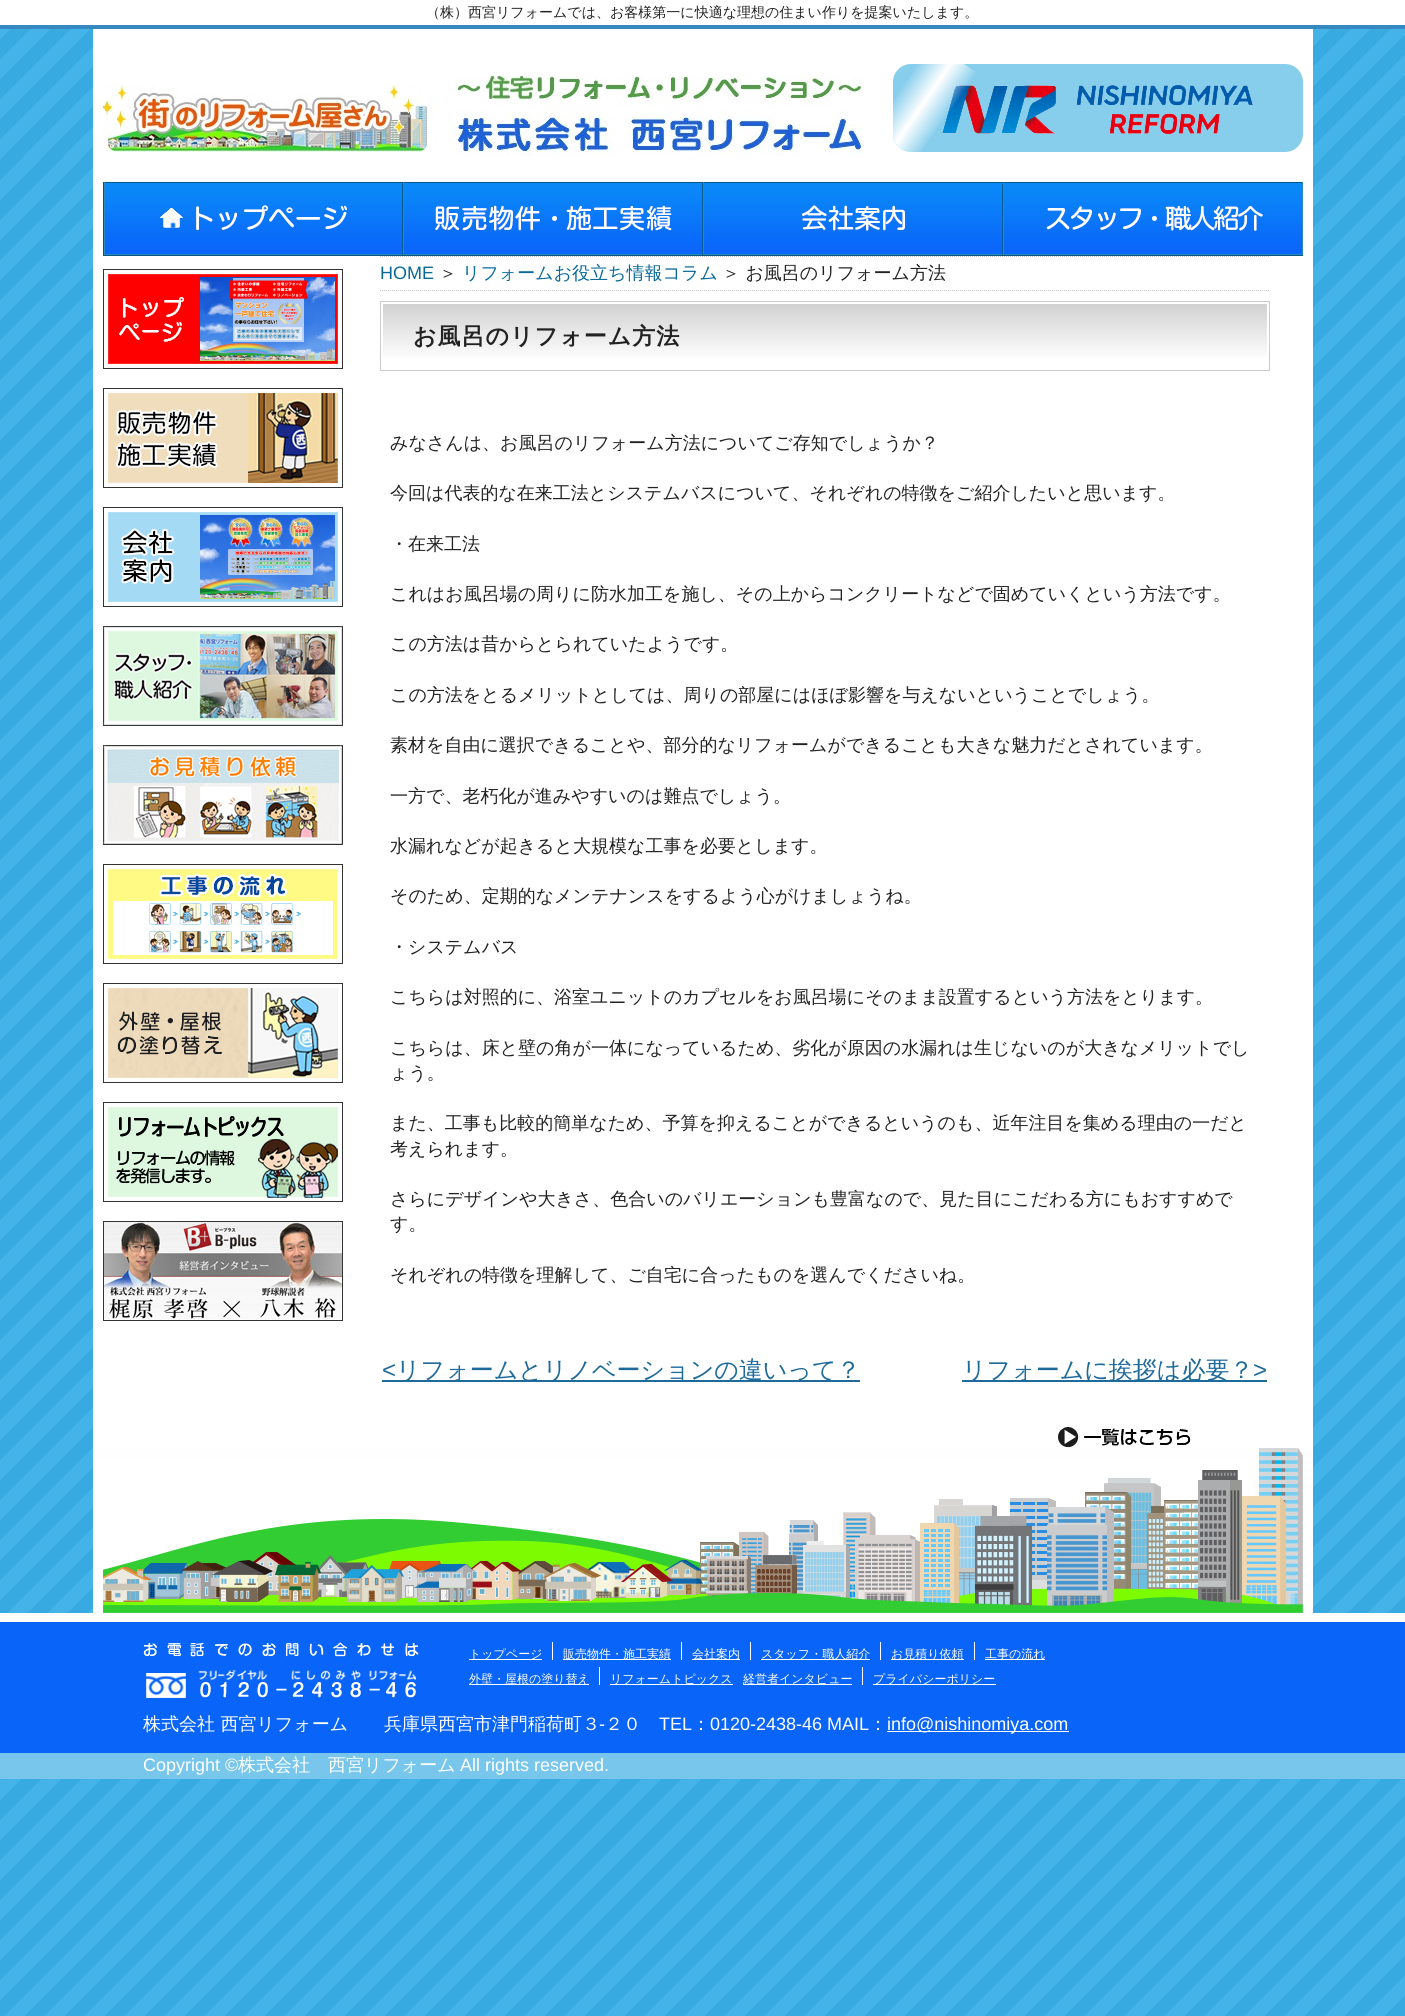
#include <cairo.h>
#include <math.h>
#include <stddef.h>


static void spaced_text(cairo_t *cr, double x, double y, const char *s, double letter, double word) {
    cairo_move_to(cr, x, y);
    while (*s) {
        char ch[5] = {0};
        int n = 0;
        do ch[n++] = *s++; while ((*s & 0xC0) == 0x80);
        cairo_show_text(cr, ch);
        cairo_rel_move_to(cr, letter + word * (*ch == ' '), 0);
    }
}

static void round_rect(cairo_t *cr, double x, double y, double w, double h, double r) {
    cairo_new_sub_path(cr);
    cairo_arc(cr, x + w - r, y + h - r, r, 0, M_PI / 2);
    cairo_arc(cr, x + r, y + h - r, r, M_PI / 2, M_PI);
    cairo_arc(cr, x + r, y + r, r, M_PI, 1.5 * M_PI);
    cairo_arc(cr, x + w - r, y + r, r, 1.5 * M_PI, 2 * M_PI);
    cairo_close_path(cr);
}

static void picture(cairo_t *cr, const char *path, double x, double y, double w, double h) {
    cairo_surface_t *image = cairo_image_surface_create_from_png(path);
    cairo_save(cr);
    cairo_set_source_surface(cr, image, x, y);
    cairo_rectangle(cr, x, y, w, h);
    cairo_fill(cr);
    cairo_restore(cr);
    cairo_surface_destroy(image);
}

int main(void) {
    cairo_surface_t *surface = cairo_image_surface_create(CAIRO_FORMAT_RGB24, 1405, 2016);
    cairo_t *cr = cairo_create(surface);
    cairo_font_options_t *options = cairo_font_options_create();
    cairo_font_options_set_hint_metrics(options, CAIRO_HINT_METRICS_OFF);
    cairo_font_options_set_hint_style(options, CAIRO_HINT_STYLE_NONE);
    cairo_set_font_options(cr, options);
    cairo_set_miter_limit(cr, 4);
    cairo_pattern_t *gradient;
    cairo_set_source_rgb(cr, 1, 1, 1);
    cairo_paint(cr);
    picture(cr, "img1.png", 0, 159, 1405, 1857);
    cairo_set_source_rgb(cr, 0.208, 0.533, 0.753);
    cairo_rectangle(cr, 0, 25, 1405, 4);
    cairo_fill(cr);
    cairo_select_font_face(cr, "WenQuanYi Zen Hei Medium", CAIRO_FONT_SLANT_NORMAL, CAIRO_FONT_WEIGHT_NORMAL);
    cairo_set_font_size(cr, 14);
    cairo_set_source_rgb(cr, 0.133, 0.133, 0.133);
    cairo_move_to(cr, 426, 17);
    cairo_show_text(cr, "（株）西宮リフォームでは、お客様第一に快適な理想の住まい作りを提案いたします。");
    picture(cr, "img2.png", 0, 29, 1405, 130);
    cairo_set_source_rgb(cr, 1, 1, 1);
    cairo_rectangle(cr, 93, 29, 1220, 1419);
    cairo_fill(cr);
    picture(cr, "img3.png", 103, 75, 760, 81);
    cairo_set_source_rgb(cr, 0.529, 0.808, 0.922);
    round_rect(cr, 893, 64, 410, 88, 18);
    cairo_fill(cr);
    picture(cr, "img4.png", 942, 85, 311, 49);
    gradient = cairo_pattern_create_linear(897, 93, 942, 124);
    cairo_pattern_add_color_stop_rgba(gradient, 0, 1, 1, 1, 0);
    cairo_pattern_add_color_stop_rgba(gradient, 0.5, 1, 1, 1, 1);
    cairo_pattern_add_color_stop_rgba(gradient, 0.51, 1, 1, 1, 1);
    cairo_pattern_add_color_stop_rgba(gradient, 1, 1, 1, 1, 0);
    cairo_set_source(cr, gradient);
    cairo_pattern_destroy(gradient);
    cairo_new_path(cr);
    cairo_move_to(cr, 893, 99);
    cairo_line_to(cr, 918, 64);
    cairo_line_to(cr, 964, 64);
    cairo_line_to(cr, 977, 73);
    cairo_line_to(cr, 921, 152);
    cairo_line_to(cr, 911, 152);
    cairo_curve_to(cr, 901, 152, 893, 144, 893, 134);
    cairo_close_path(cr);
    cairo_fill(cr);
    picture(cr, "img5.png", 103, 182, 300, 74);
    picture(cr, "img6.png", 403, 182, 300, 74);
    picture(cr, "img7.png", 703, 182, 300, 74);
    picture(cr, "img8.png", 1003, 182, 300, 74);
    picture(cr, "img9.png", 103, 269, 240, 100);
    picture(cr, "img10.png", 103, 388, 240, 100);
    picture(cr, "img11.png", 103, 507, 240, 100);
    picture(cr, "img12.png", 103, 626, 240, 100);
    picture(cr, "img13.png", 103, 745, 240, 100);
    picture(cr, "img14.png", 103, 864, 240, 100);
    picture(cr, "img15.png", 103, 983, 240, 100);
    picture(cr, "img16.png", 103, 1102, 240, 100);
    picture(cr, "img17.png", 103, 1221, 240, 100);
    cairo_new_path(cr);
    cairo_move_to(cr, 380, 256.5);
    cairo_line_to(cr, 1270, 256.5);
    cairo_set_source_rgb(cr, 0.8, 0.8, 0.8);
    cairo_set_line_width(cr, 1);
    cairo_set_dash(cr, (double[]){1, 1}, 2, 0);
    cairo_stroke(cr);
    cairo_new_path(cr);
    cairo_move_to(cr, 380, 290.5);
    cairo_line_to(cr, 1270, 290.5);
    cairo_stroke(cr);
    cairo_select_font_face(cr, "Liberation Sans", CAIRO_FONT_SLANT_NORMAL, CAIRO_FONT_WEIGHT_NORMAL);
    cairo_set_font_size(cr, 18);
    cairo_set_source_rgb(cr, 0.039, 0.412, 0.6);
    cairo_move_to(cr, 380, 279);
    cairo_show_text(cr, "HOME");
    cairo_select_font_face(cr, "WenQuanYi Zen Hei Medium", CAIRO_FONT_SLANT_NORMAL, CAIRO_FONT_WEIGHT_NORMAL);
    cairo_set_source_rgb(cr, 0.133, 0.133, 0.133);
    cairo_move_to(cr, 439, 279);
    cairo_show_text(cr, "＞");
    cairo_set_source_rgb(cr, 0.039, 0.412, 0.6);
    cairo_move_to(cr, 462, 279);
    cairo_show_text(cr, "リフォームお役立ち情報コラム");
    cairo_set_source_rgb(cr, 0.133, 0.133, 0.133);
    cairo_move_to(cr, 722, 279);
    cairo_show_text(cr, "＞ お風呂のリフォーム方法");
    cairo_rectangle(cr, 380.5, 301.5, 889, 69);
    cairo_set_source_rgb(cr, 0.8, 0.8, 0.8);
    cairo_set_dash(cr, NULL, 0, 0);
    cairo_stroke(cr);
    gradient = cairo_pattern_create_linear(825, 304, 825, 368);
    cairo_pattern_add_color_stop_rgba(gradient, 0, 0.82, 0.82, 0.82, 1);
    cairo_pattern_add_color_stop_rgba(gradient, 0.88, 1, 1, 1, 1);
    cairo_set_source(cr, gradient);
    cairo_pattern_destroy(gradient);
    cairo_rectangle(cr, 383, 304, 884, 53);
    cairo_fill(cr);
    cairo_select_font_face(cr, "WenQuanYi Zen Hei", CAIRO_FONT_SLANT_NORMAL, CAIRO_FONT_WEIGHT_BOLD);
    cairo_set_font_size(cr, 23);
    cairo_set_source_rgb(cr, 0.133, 0.133, 0.133);
    spaced_text(cr, 413, 344, "お風呂のリフォーム方法", 1, 0);
    cairo_select_font_face(cr, "WenQuanYi Zen Hei Medium", CAIRO_FONT_SLANT_NORMAL, CAIRO_FONT_WEIGHT_NORMAL);
    cairo_set_font_size(cr, 18);
    cairo_move_to(cr, 390, 449);
    cairo_show_text(cr, "みなさんは、お風呂のリフォーム方法についてご存知でしょうか？");
    cairo_move_to(cr, 390, 499);
    cairo_show_text(cr, "今回は代表的な在来工法とシステムバスについて、それぞれの特徴をご紹介したいと思います。");
    cairo_move_to(cr, 390, 550);
    cairo_show_text(cr, "・在来工法");
    cairo_move_to(cr, 390, 600);
    cairo_show_text(cr, "これはお風呂場の周りに防水加工を施し、その上からコンクリートなどで固めていくという方法です。");
    cairo_move_to(cr, 390, 650);
    cairo_show_text(cr, "この方法は昔からとられていたようです。");
    cairo_move_to(cr, 390, 701);
    cairo_show_text(cr, "この方法をとるメリットとしては、周りの部屋にはほぼ影響を与えないということでしょう。");
    cairo_move_to(cr, 390, 751);
    cairo_show_text(cr, "素材を自由に選択できることや、部分的なリフォームができることも大きな魅力だとされています。");
    cairo_move_to(cr, 390, 802);
    cairo_show_text(cr, "一方で、老朽化が進みやすいのは難点でしょう。");
    cairo_move_to(cr, 390, 852);
    cairo_show_text(cr, "水漏れなどが起きると大規模な工事を必要とします。");
    cairo_move_to(cr, 390, 902);
    cairo_show_text(cr, "そのため、定期的なメンテナンスをするよう心がけましょうね。");
    cairo_move_to(cr, 390, 953);
    cairo_show_text(cr, "・システムバス");
    cairo_move_to(cr, 390, 1003);
    cairo_show_text(cr, "こちらは対照的に、浴室ユニットのカプセルをお風呂場にそのまま設置するという方法をとります。");
    cairo_move_to(cr, 390, 1054);
    cairo_show_text(cr, "こちらは、床と壁の角が一体になっているため、劣化が原因の水漏れは生じないのが大きなメリットでし");
    cairo_move_to(cr, 390, 1079);
    cairo_show_text(cr, "ょう。");
    cairo_move_to(cr, 390, 1129);
    cairo_show_text(cr, "また、工事も比較的簡単なため、予算を抑えることができるというのも、近年注目を集める理由の一だと");
    cairo_move_to(cr, 390, 1155);
    cairo_show_text(cr, "考えられます。");
    cairo_move_to(cr, 390, 1205);
    cairo_show_text(cr, "さらにデザインや大きさ、色合いのバリエーションも豊富なので、見た目にこだわる方にもおすすめで");
    cairo_move_to(cr, 390, 1230);
    cairo_show_text(cr, "す。");
    cairo_move_to(cr, 390, 1281);
    cairo_show_text(cr, "それぞれの特徴を理解して、ご自宅に合ったものを選んでくださいね。");
    cairo_select_font_face(cr, "Liberation Sans", CAIRO_FONT_SLANT_NORMAL, CAIRO_FONT_WEIGHT_NORMAL);
    cairo_set_font_size(cr, 24);
    cairo_set_source_rgb(cr, 0.118, 0.416, 0.608);
    cairo_move_to(cr, 382, 1378);
    cairo_show_text(cr, "<");
    cairo_rectangle(cr, 382, 1380, 478, 2);
    cairo_fill(cr);
    cairo_select_font_face(cr, "WenQuanYi Zen Hei Medium", CAIRO_FONT_SLANT_NORMAL, CAIRO_FONT_WEIGHT_NORMAL);
    cairo_move_to(cr, 396, 1378);
    cairo_show_text(cr, "リフォームとリノベーションの違いって？");
    cairo_rectangle(cr, 962, 1380, 305, 2);
    cairo_fill(cr);
    cairo_move_to(cr, 962, 1378);
    cairo_show_text(cr, "リフォームに挨拶は必要？");
    cairo_select_font_face(cr, "Liberation Sans", CAIRO_FONT_SLANT_NORMAL, CAIRO_FONT_WEIGHT_NORMAL);
    cairo_move_to(cr, 1253, 1378);
    cairo_show_text(cr, ">");
    picture(cr, "img18.png", 1058, 1427, 133, 21);
    picture(cr, "img19.png", 93, 1448, 1220, 165);
    cairo_set_source_rgb(cr, 0.039, 0.392, 0.98);
    cairo_rectangle(cr, 0, 1622, 1405, 131);
    cairo_fill(cr);
    cairo_set_source_rgb(cr, 1, 1, 1);
    cairo_rectangle(cr, 0, 1613, 1405, 9);
    cairo_fill(cr);
    picture(cr, "img20.png", 143, 1642, 276, 56);
    cairo_rectangle(cr, 552, 1642, 1, 18);
    cairo_fill(cr);
    cairo_rectangle(cr, 469, 1659, 73, 1);
    cairo_fill(cr);
    cairo_select_font_face(cr, "WenQuanYi Zen Hei Medium", CAIRO_FONT_SLANT_NORMAL, CAIRO_FONT_WEIGHT_NORMAL);
    cairo_set_font_size(cr, 12);
    cairo_move_to(cr, 469, 1658);
    cairo_show_text(cr, "トップページ");
    cairo_rectangle(cr, 681, 1642, 1, 18);
    cairo_fill(cr);
    cairo_rectangle(cr, 563, 1659, 108, 1);
    cairo_fill(cr);
    cairo_move_to(cr, 563, 1658);
    cairo_show_text(cr, "販売物件・施工実績");
    cairo_rectangle(cr, 750, 1642, 1, 18);
    cairo_fill(cr);
    cairo_rectangle(cr, 692, 1659, 48, 1);
    cairo_fill(cr);
    cairo_move_to(cr, 692, 1658);
    cairo_show_text(cr, "会社案内");
    cairo_rectangle(cr, 880, 1642, 1, 18);
    cairo_fill(cr);
    cairo_rectangle(cr, 761, 1659, 109, 1);
    cairo_fill(cr);
    cairo_move_to(cr, 761, 1658);
    cairo_show_text(cr, "スタッフ・職人紹介");
    cairo_rectangle(cr, 974, 1642, 1, 18);
    cairo_fill(cr);
    cairo_rectangle(cr, 891, 1659, 73, 1);
    cairo_fill(cr);
    cairo_move_to(cr, 891, 1658);
    cairo_show_text(cr, "お見積り依頼");
    cairo_rectangle(cr, 985, 1659, 60, 1);
    cairo_fill(cr);
    cairo_move_to(cr, 985, 1658);
    cairo_show_text(cr, "工事の流れ");
    cairo_rectangle(cr, 599, 1667, 1, 18);
    cairo_fill(cr);
    cairo_rectangle(cr, 469, 1684, 120, 1);
    cairo_fill(cr);
    cairo_move_to(cr, 469, 1683);
    cairo_show_text(cr, "外壁・屋根の塗り替え");
    cairo_rectangle(cr, 610, 1684, 123, 1);
    cairo_fill(cr);
    cairo_move_to(cr, 610, 1683);
    cairo_show_text(cr, "リフォームトピックス");
    cairo_rectangle(cr, 862, 1667, 1, 18);
    cairo_fill(cr);
    cairo_rectangle(cr, 743, 1684, 109, 1);
    cairo_fill(cr);
    cairo_move_to(cr, 743, 1683);
    cairo_show_text(cr, "経営者インタビュー");
    cairo_rectangle(cr, 873, 1684, 123, 1);
    cairo_fill(cr);
    cairo_move_to(cr, 873, 1683);
    cairo_show_text(cr, "プライバシーポリシー");
    cairo_set_font_size(cr, 18);
    cairo_move_to(cr, 143, 1730);
    cairo_show_text(cr, "株式会社 西宮リフォーム　　兵庫県西宮市津門稲荷町３");
    cairo_select_font_face(cr, "Liberation Sans", CAIRO_FONT_SLANT_NORMAL, CAIRO_FONT_WEIGHT_NORMAL);
    cairo_move_to(cr, 599, 1730);
    cairo_show_text(cr, "-");
    cairo_select_font_face(cr, "WenQuanYi Zen Hei Medium", CAIRO_FONT_SLANT_NORMAL, CAIRO_FONT_WEIGHT_NORMAL);
    cairo_move_to(cr, 605, 1730);
    cairo_show_text(cr, "２０");
    cairo_select_font_face(cr, "Liberation Sans", CAIRO_FONT_SLANT_NORMAL, CAIRO_FONT_WEIGHT_NORMAL);
    cairo_move_to(cr, 659, 1730);
    cairo_show_text(cr, "TEL");
    cairo_select_font_face(cr, "WenQuanYi Zen Hei Medium", CAIRO_FONT_SLANT_NORMAL, CAIRO_FONT_WEIGHT_NORMAL);
    cairo_move_to(cr, 692, 1730);
    cairo_show_text(cr, "：");
    cairo_select_font_face(cr, "Liberation Sans", CAIRO_FONT_SLANT_NORMAL, CAIRO_FONT_WEIGHT_NORMAL);
    cairo_move_to(cr, 710, 1730);
    cairo_show_text(cr, "0120-2438-46 MAIL");
    cairo_select_font_face(cr, "WenQuanYi Zen Hei Medium", CAIRO_FONT_SLANT_NORMAL, CAIRO_FONT_WEIGHT_NORMAL);
    cairo_move_to(cr, 869, 1730);
    cairo_show_text(cr, "：");
    cairo_rectangle(cr, 887, 1731, 182, 1);
    cairo_fill(cr);
    cairo_select_font_face(cr, "Liberation Sans", CAIRO_FONT_SLANT_NORMAL, CAIRO_FONT_WEIGHT_NORMAL);
    cairo_move_to(cr, 887, 1730);
    cairo_show_text(cr, "info@nishinomiya.com");
    cairo_set_source_rgb(cr, 0.471, 0.776, 0.925);
    cairo_rectangle(cr, 0, 1753, 1405, 26);
    cairo_fill(cr);
    cairo_set_source_rgb(cr, 1, 1, 1);
    cairo_move_to(cr, 143, 1771);
    cairo_show_text(cr, "Copyright ©");
    cairo_select_font_face(cr, "WenQuanYi Zen Hei Medium", CAIRO_FONT_SLANT_NORMAL, CAIRO_FONT_WEIGHT_NORMAL);
    cairo_move_to(cr, 238, 1771);
    cairo_show_text(cr, "株式会社　西宮リフォーム");
    cairo_select_font_face(cr, "Liberation Sans", CAIRO_FONT_SLANT_NORMAL, CAIRO_FONT_WEIGHT_NORMAL);
    cairo_move_to(cr, 460, 1771);
    cairo_show_text(cr, "All rights reserved.");
    cairo_surface_write_to_png(surface, "page.png");
    cairo_font_options_destroy(options);
    cairo_destroy(cr);
    cairo_surface_destroy(surface);
    return 0;
}
